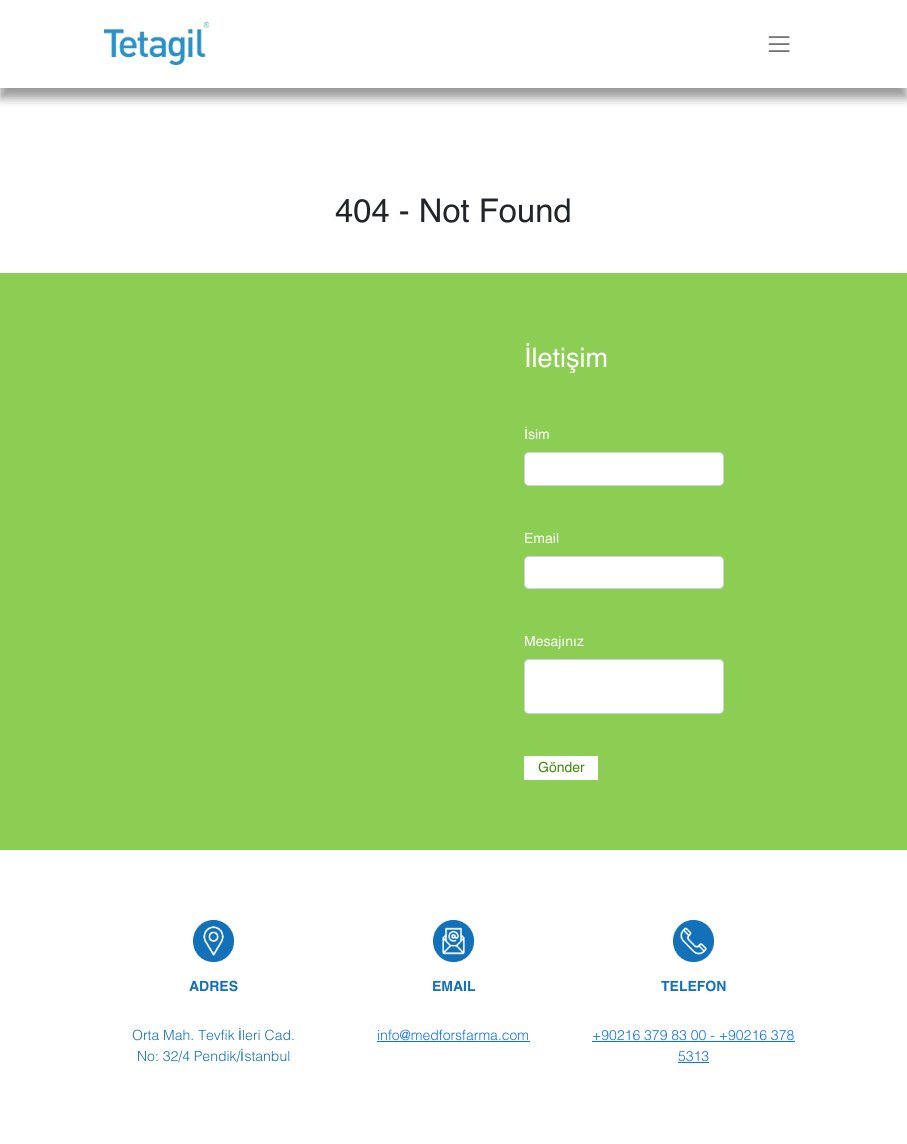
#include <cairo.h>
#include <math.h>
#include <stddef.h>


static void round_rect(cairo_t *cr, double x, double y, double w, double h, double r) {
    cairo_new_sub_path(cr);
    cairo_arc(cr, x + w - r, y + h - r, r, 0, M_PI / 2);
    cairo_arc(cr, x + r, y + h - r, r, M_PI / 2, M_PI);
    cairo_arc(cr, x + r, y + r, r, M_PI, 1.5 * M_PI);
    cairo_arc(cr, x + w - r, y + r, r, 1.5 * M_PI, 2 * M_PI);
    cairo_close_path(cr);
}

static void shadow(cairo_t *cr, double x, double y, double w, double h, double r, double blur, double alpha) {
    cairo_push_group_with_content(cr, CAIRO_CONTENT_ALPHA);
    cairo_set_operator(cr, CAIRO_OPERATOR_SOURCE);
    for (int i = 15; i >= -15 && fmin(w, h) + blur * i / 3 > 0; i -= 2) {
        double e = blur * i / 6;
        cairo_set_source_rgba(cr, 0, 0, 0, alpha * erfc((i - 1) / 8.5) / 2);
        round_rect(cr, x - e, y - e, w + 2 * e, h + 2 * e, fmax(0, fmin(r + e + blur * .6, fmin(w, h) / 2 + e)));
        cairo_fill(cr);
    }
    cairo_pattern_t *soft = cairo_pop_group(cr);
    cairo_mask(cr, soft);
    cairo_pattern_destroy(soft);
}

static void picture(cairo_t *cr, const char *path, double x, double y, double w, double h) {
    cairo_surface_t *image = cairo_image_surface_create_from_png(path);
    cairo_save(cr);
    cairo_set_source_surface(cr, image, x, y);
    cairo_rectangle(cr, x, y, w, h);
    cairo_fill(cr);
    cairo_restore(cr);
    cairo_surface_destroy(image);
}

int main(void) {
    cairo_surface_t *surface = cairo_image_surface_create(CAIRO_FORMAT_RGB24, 907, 1144);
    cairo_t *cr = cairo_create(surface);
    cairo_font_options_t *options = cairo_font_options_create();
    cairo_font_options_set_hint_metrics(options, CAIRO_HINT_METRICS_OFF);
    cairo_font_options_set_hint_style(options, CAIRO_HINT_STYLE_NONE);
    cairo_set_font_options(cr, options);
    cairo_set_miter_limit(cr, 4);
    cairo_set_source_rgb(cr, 1, 1, 1);
    cairo_paint(cr);
    cairo_save(cr);
    cairo_rectangle(cr, 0, 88, 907, 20);
    cairo_clip(cr);
    cairo_set_source_rgb(cr, 0.6, 0.6, 0.6);
    shadow(cr, 0, 10, 907, 88, 0, 5, 1);
    cairo_restore(cr);
    picture(cr, "img1.png", 104, 22, 105, 43);
    picture(cr, "img2.png", 768, 36, 22, 16);
    cairo_select_font_face(cr, "Helvetica", CAIRO_FONT_SLANT_NORMAL, CAIRO_FONT_WEIGHT_NORMAL);
    cairo_set_font_size(cr, 32.75);
    cairo_set_source_rgb(cr, 0.129, 0.145, 0.161);
    cairo_move_to(cr, 335, 222);
    cairo_show_text(cr, "404 - Not Found");
    cairo_set_source_rgb(cr, 0.549, 0.804, 0.329);
    cairo_rectangle(cr, 0, 273, 907, 577);
    cairo_fill(cr);
    cairo_set_font_size(cr, 27);
    cairo_set_source_rgb(cr, 1, 1, 1);
    cairo_move_to(cr, 524, 367);
    cairo_show_text(cr, "İletişim");
    cairo_set_font_size(cr, 14);
    cairo_move_to(cr, 524, 439);
    cairo_show_text(cr, "İsim");
    round_rect(cr, 524.5, 452.5, 199, 33, 4.5);
    cairo_fill_preserve(cr);
    cairo_set_source_rgb(cr, 0.808, 0.831, 0.855);
    cairo_set_line_width(cr, 1);
    cairo_stroke(cr);
    cairo_set_source_rgb(cr, 1, 1, 1);
    cairo_move_to(cr, 524, 543);
    cairo_show_text(cr, "Email");
    round_rect(cr, 524.5, 556.5, 199, 32, 4.5);
    cairo_fill_preserve(cr);
    cairo_set_source_rgb(cr, 0.808, 0.831, 0.855);
    cairo_stroke(cr);
    cairo_set_source_rgb(cr, 1, 1, 1);
    cairo_move_to(cr, 524, 646);
    cairo_show_text(cr, "Mesajınız");
    round_rect(cr, 524.5, 659.5, 199, 54, 4.5);
    cairo_fill_preserve(cr);
    cairo_set_source_rgb(cr, 0.808, 0.831, 0.855);
    cairo_stroke(cr);
    cairo_set_source_rgb(cr, 1, 1, 1);
    cairo_rectangle(cr, 524, 756, 74, 24);
    cairo_fill(cr);
    cairo_set_source_rgb(cr, 0.263, 0.537, 0.024);
    cairo_move_to(cr, 538, 772);
    cairo_show_text(cr, "Gönder");
    picture(cr, "img3.png", 193, 920, 41, 42);
    cairo_select_font_face(cr, "Helvetica", CAIRO_FONT_SLANT_NORMAL, CAIRO_FONT_WEIGHT_BOLD);
    cairo_set_source_rgb(cr, 0.075, 0.443, 0.725);
    cairo_move_to(cr, 189, 991);
    cairo_show_text(cr, "ADRES");
    cairo_select_font_face(cr, "Helvetica Light", CAIRO_FONT_SLANT_NORMAL, CAIRO_FONT_WEIGHT_NORMAL);
    cairo_move_to(cr, 132, 1040);
    cairo_show_text(cr, "Orta Mah. Tevfik");
    cairo_select_font_face(cr, "Liberation Sans", CAIRO_FONT_SLANT_NORMAL, CAIRO_FONT_WEIGHT_NORMAL);
    cairo_move_to(cr, 238, 1040);
    cairo_show_text(cr, "İ");
    cairo_select_font_face(cr, "Helvetica Light", CAIRO_FONT_SLANT_NORMAL, CAIRO_FONT_WEIGHT_NORMAL);
    cairo_move_to(cr, 242, 1040);
    cairo_show_text(cr, "leri Cad.");
    cairo_move_to(cr, 137, 1061);
    cairo_show_text(cr, "No: 32/4 Pendik/ stanbul");
    cairo_select_font_face(cr, "Liberation Sans", CAIRO_FONT_SLANT_NORMAL, CAIRO_FONT_WEIGHT_NORMAL);
    cairo_move_to(cr, 240, 1061);
    cairo_show_text(cr, "İ");
    picture(cr, "img4.png", 433, 920, 41, 42);
    cairo_select_font_face(cr, "Helvetica", CAIRO_FONT_SLANT_NORMAL, CAIRO_FONT_WEIGHT_BOLD);
    cairo_move_to(cr, 432, 991);
    cairo_show_text(cr, "EMAIL");
    cairo_select_font_face(cr, "Helvetica Light", CAIRO_FONT_SLANT_NORMAL, CAIRO_FONT_WEIGHT_NORMAL);
    cairo_set_source_rgb(cr, 0.051, 0.431, 0.992);
    cairo_move_to(cr, 377, 1040);
    cairo_show_text(cr, "info@medforsfarma.com");
    cairo_rectangle(cr, 377, 1041, 153, 1);
    cairo_fill(cr);
    picture(cr, "img5.png", 673, 920, 41, 42);
    cairo_select_font_face(cr, "Helvetica", CAIRO_FONT_SLANT_NORMAL, CAIRO_FONT_WEIGHT_BOLD);
    cairo_set_source_rgb(cr, 0.075, 0.443, 0.725);
    cairo_move_to(cr, 661, 991);
    cairo_show_text(cr, "TELEFON");
    cairo_select_font_face(cr, "Helvetica Light", CAIRO_FONT_SLANT_NORMAL, CAIRO_FONT_WEIGHT_NORMAL);
    cairo_set_source_rgb(cr, 0.051, 0.431, 0.992);
    cairo_move_to(cr, 592, 1040);
    cairo_show_text(cr, "+90216 379 83 00 - +90216 378");
    cairo_rectangle(cr, 592, 1041, 203, 1);
    cairo_fill(cr);
    cairo_move_to(cr, 678, 1061);
    cairo_show_text(cr, "5313");
    cairo_rectangle(cr, 678, 1062, 31, 1);
    cairo_fill(cr);
    cairo_surface_write_to_png(surface, "page.png");
    cairo_font_options_destroy(options);
    cairo_destroy(cr);
    cairo_surface_destroy(surface);
    return 0;
}
